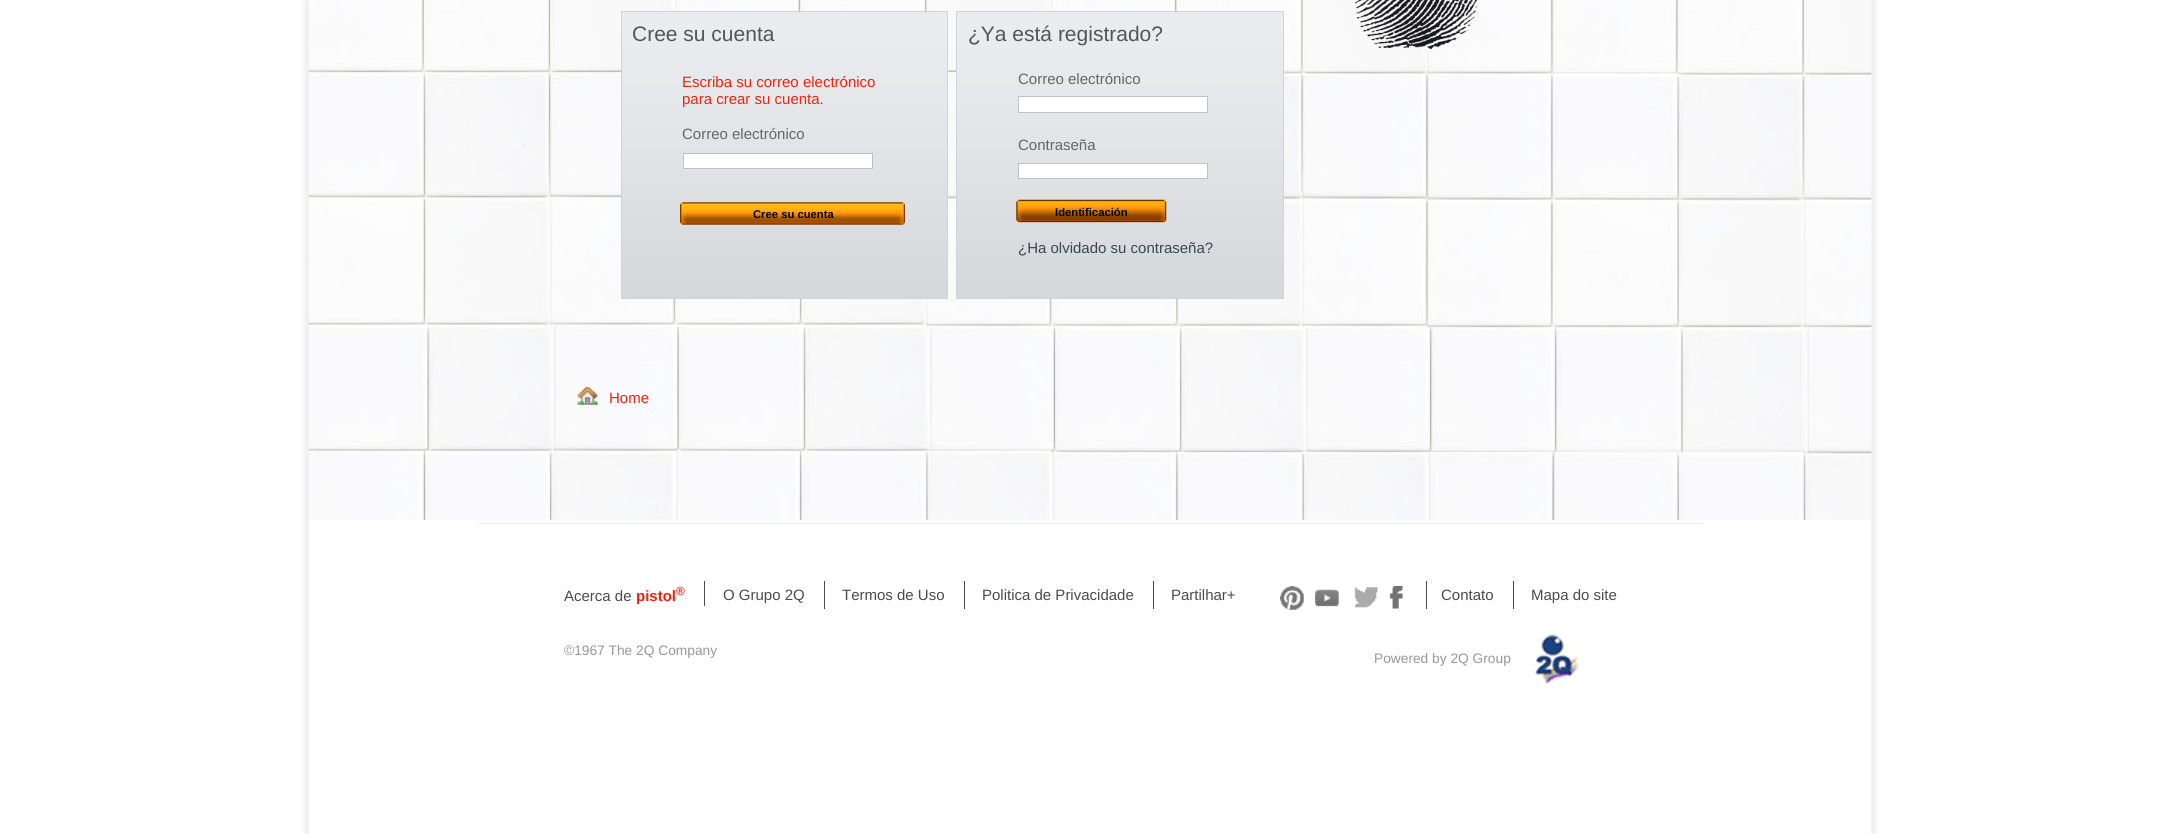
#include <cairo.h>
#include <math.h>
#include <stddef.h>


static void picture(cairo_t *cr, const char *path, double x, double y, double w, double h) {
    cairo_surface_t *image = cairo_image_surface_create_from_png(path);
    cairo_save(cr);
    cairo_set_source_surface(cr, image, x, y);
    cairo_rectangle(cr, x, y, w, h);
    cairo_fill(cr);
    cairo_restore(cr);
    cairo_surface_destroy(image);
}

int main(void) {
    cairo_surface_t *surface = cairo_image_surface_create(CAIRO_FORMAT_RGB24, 2178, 834);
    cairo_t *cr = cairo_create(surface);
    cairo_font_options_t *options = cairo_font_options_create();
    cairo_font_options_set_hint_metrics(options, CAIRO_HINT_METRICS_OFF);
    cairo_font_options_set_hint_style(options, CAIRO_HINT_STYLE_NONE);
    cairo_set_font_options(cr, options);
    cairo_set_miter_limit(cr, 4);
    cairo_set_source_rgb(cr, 1, 1, 1);
    cairo_paint(cr);
    picture(cr, "img1.png", 302, 0, 1576, 834);
    picture(cr, "img2.png", 308, 0, 1564, 520);
    picture(cr, "img3.png", 622, 12, 325, 286);
    cairo_rectangle(cr, 621.5, 11.5, 326, 287);
    cairo_set_source_rgb(cr, 0.816, 0.827, 0.847);
    cairo_set_line_width(cr, 1);
    cairo_stroke(cr);
    cairo_select_font_face(cr, "Liberation Sans", CAIRO_FONT_SLANT_NORMAL, CAIRO_FONT_WEIGHT_NORMAL);
    cairo_set_font_size(cr, 21);
    cairo_set_source_rgb(cr, 0.333, 0.333, 0.333);
    cairo_move_to(cr, 632, 41);
    cairo_show_text(cr, "Cree su cuenta");
    cairo_set_font_size(cr, 15);
    cairo_set_source_rgb(cr, 0.957, 0.129, 0.043);
    cairo_move_to(cr, 682, 87);
    cairo_show_text(cr, "Escriba su correo electrónico");
    cairo_move_to(cr, 682, 104);
    cairo_show_text(cr, "para crear su cuenta.");
    cairo_set_source_rgb(cr, 0.4, 0.4, 0.4);
    cairo_move_to(cr, 682, 139);
    cairo_show_text(cr, "Correo electrónico");
    cairo_set_source_rgb(cr, 1, 1, 1);
    cairo_rectangle(cr, 683.5, 153.5, 189, 15);
    cairo_fill_preserve(cr);
    cairo_set_source_rgb(cr, 0.741, 0.761, 0.788);
    cairo_stroke(cr);
    cairo_set_source_rgb(cr, 0.937, 0.937, 0.937);
    cairo_rectangle(cr, 680, 203, 225, 22);
    cairo_fill(cr);
    picture(cr, "img4.png", 680, 202, 225, 23);
    cairo_select_font_face(cr, "Liberation Sans", CAIRO_FONT_SLANT_NORMAL, CAIRO_FONT_WEIGHT_BOLD);
    cairo_set_font_size(cr, 11.25);
    cairo_set_source_rgb(cr, 0, 0, 0);
    cairo_move_to(cr, 753, 218);
    cairo_show_text(cr, "Cree su cuenta");
    picture(cr, "img5.png", 957, 12, 326, 286);
    cairo_rectangle(cr, 956.5, 11.5, 327, 287);
    cairo_set_source_rgb(cr, 0.816, 0.827, 0.847);
    cairo_stroke(cr);
    cairo_select_font_face(cr, "Liberation Sans", CAIRO_FONT_SLANT_NORMAL, CAIRO_FONT_WEIGHT_NORMAL);
    cairo_set_font_size(cr, 21);
    cairo_set_source_rgb(cr, 0.333, 0.333, 0.333);
    cairo_move_to(cr, 968, 41);
    cairo_show_text(cr, "¿Ya está registrado?");
    cairo_set_font_size(cr, 15);
    cairo_set_source_rgb(cr, 0.4, 0.4, 0.4);
    cairo_move_to(cr, 1018, 84);
    cairo_show_text(cr, "Correo electrónico");
    cairo_set_source_rgb(cr, 1, 1, 1);
    cairo_rectangle(cr, 1018.5, 96.5, 189, 16);
    cairo_fill_preserve(cr);
    cairo_set_source_rgb(cr, 0.741, 0.761, 0.788);
    cairo_stroke(cr);
    cairo_set_source_rgb(cr, 0.4, 0.4, 0.4);
    cairo_move_to(cr, 1018, 150);
    cairo_show_text(cr, "Contraseña");
    cairo_set_source_rgb(cr, 1, 1, 1);
    cairo_rectangle(cr, 1018.5, 163.5, 189, 15);
    cairo_fill_preserve(cr);
    cairo_set_source_rgb(cr, 0.741, 0.761, 0.788);
    cairo_stroke(cr);
    cairo_set_source_rgb(cr, 0.937, 0.937, 0.937);
    cairo_rectangle(cr, 1016, 200, 150, 23);
    cairo_fill(cr);
    picture(cr, "img6.png", 1016, 199, 151, 24);
    cairo_select_font_face(cr, "Liberation Sans", CAIRO_FONT_SLANT_NORMAL, CAIRO_FONT_WEIGHT_BOLD);
    cairo_set_font_size(cr, 11.25);
    cairo_set_source_rgb(cr, 0, 0, 0);
    cairo_move_to(cr, 1055, 216);
    cairo_show_text(cr, "Identificación");
    cairo_select_font_face(cr, "Liberation Sans", CAIRO_FONT_SLANT_NORMAL, CAIRO_FONT_WEIGHT_NORMAL);
    cairo_set_font_size(cr, 15);
    cairo_set_source_rgb(cr, 0.216, 0.282, 0.325);
    cairo_move_to(cr, 1018, 253);
    cairo_show_text(cr, "¿Ha olvidado su contraseña?");
    picture(cr, "img7.png", 577, 386, 21, 19);
    cairo_set_source_rgb(cr, 0.957, 0.129, 0.043);
    cairo_move_to(cr, 609, 403);
    cairo_show_text(cr, "Home");
    picture(cr, "img8.png", 1355, 0, 124, 50);
    cairo_set_source_rgb(cr, 0.929, 0.929, 0.929);
    cairo_rectangle(cr, 478, 523, 1225, 1);
    cairo_fill(cr);
    cairo_set_source_rgb(cr, 0.294, 0.294, 0.294);
    cairo_rectangle(cr, 704, 581, 1, 25);
    cairo_fill(cr);
    cairo_move_to(cr, 564, 601);
    cairo_show_text(cr, "Acerca de");
    cairo_select_font_face(cr, "Liberation Sans", CAIRO_FONT_SLANT_NORMAL, CAIRO_FONT_WEIGHT_BOLD);
    cairo_set_source_rgb(cr, 0.957, 0.129, 0.043);
    cairo_move_to(cr, 636, 601);
    cairo_show_text(cr, "pistol");
    cairo_set_font_size(cr, 12);
    cairo_move_to(cr, 676, 595);
    cairo_show_text(cr, "®");
    cairo_set_source_rgb(cr, 0.294, 0.294, 0.294);
    cairo_rectangle(cr, 824, 581, 1, 28);
    cairo_fill(cr);
    cairo_select_font_face(cr, "Liberation Sans", CAIRO_FONT_SLANT_NORMAL, CAIRO_FONT_WEIGHT_NORMAL);
    cairo_set_font_size(cr, 15);
    cairo_move_to(cr, 723, 600);
    cairo_show_text(cr, "O Grupo 2Q");
    cairo_rectangle(cr, 964, 581, 1, 28);
    cairo_fill(cr);
    cairo_move_to(cr, 842, 600);
    cairo_show_text(cr, "Termos de Uso");
    cairo_rectangle(cr, 1153, 581, 1, 28);
    cairo_fill(cr);
    cairo_move_to(cr, 982, 600);
    cairo_show_text(cr, "Politica de Privacidade");
    cairo_move_to(cr, 1171, 600);
    cairo_show_text(cr, "Partilhar+");
    picture(cr, "img9.png", 1280, 586, 24, 24);
    picture(cr, "img10.png", 1315, 589, 24, 18);
    picture(cr, "img11.png", 1354, 587, 24, 21);
    picture(cr, "img12.png", 1389, 586, 14, 23);
    cairo_rectangle(cr, 1513, 581, 1, 28);
    cairo_fill(cr);
    cairo_rectangle(cr, 1426, 581, 1, 28);
    cairo_fill(cr);
    cairo_move_to(cr, 1441, 600);
    cairo_show_text(cr, "Contato");
    cairo_move_to(cr, 1531, 600);
    cairo_show_text(cr, "Mapa do site");
    cairo_set_font_size(cr, 13.75);
    cairo_set_source_rgb(cr, 0.596, 0.596, 0.596);
    cairo_move_to(cr, 564, 655);
    cairo_show_text(cr, "©1967 The 2Q Company");
    cairo_move_to(cr, 1374, 663);
    cairo_show_text(cr, "Powered by 2Q Group");
    picture(cr, "img13.png", 1532, 634, 48, 50);
    cairo_surface_write_to_png(surface, "page.png");
    cairo_font_options_destroy(options);
    cairo_destroy(cr);
    cairo_surface_destroy(surface);
    return 0;
}
